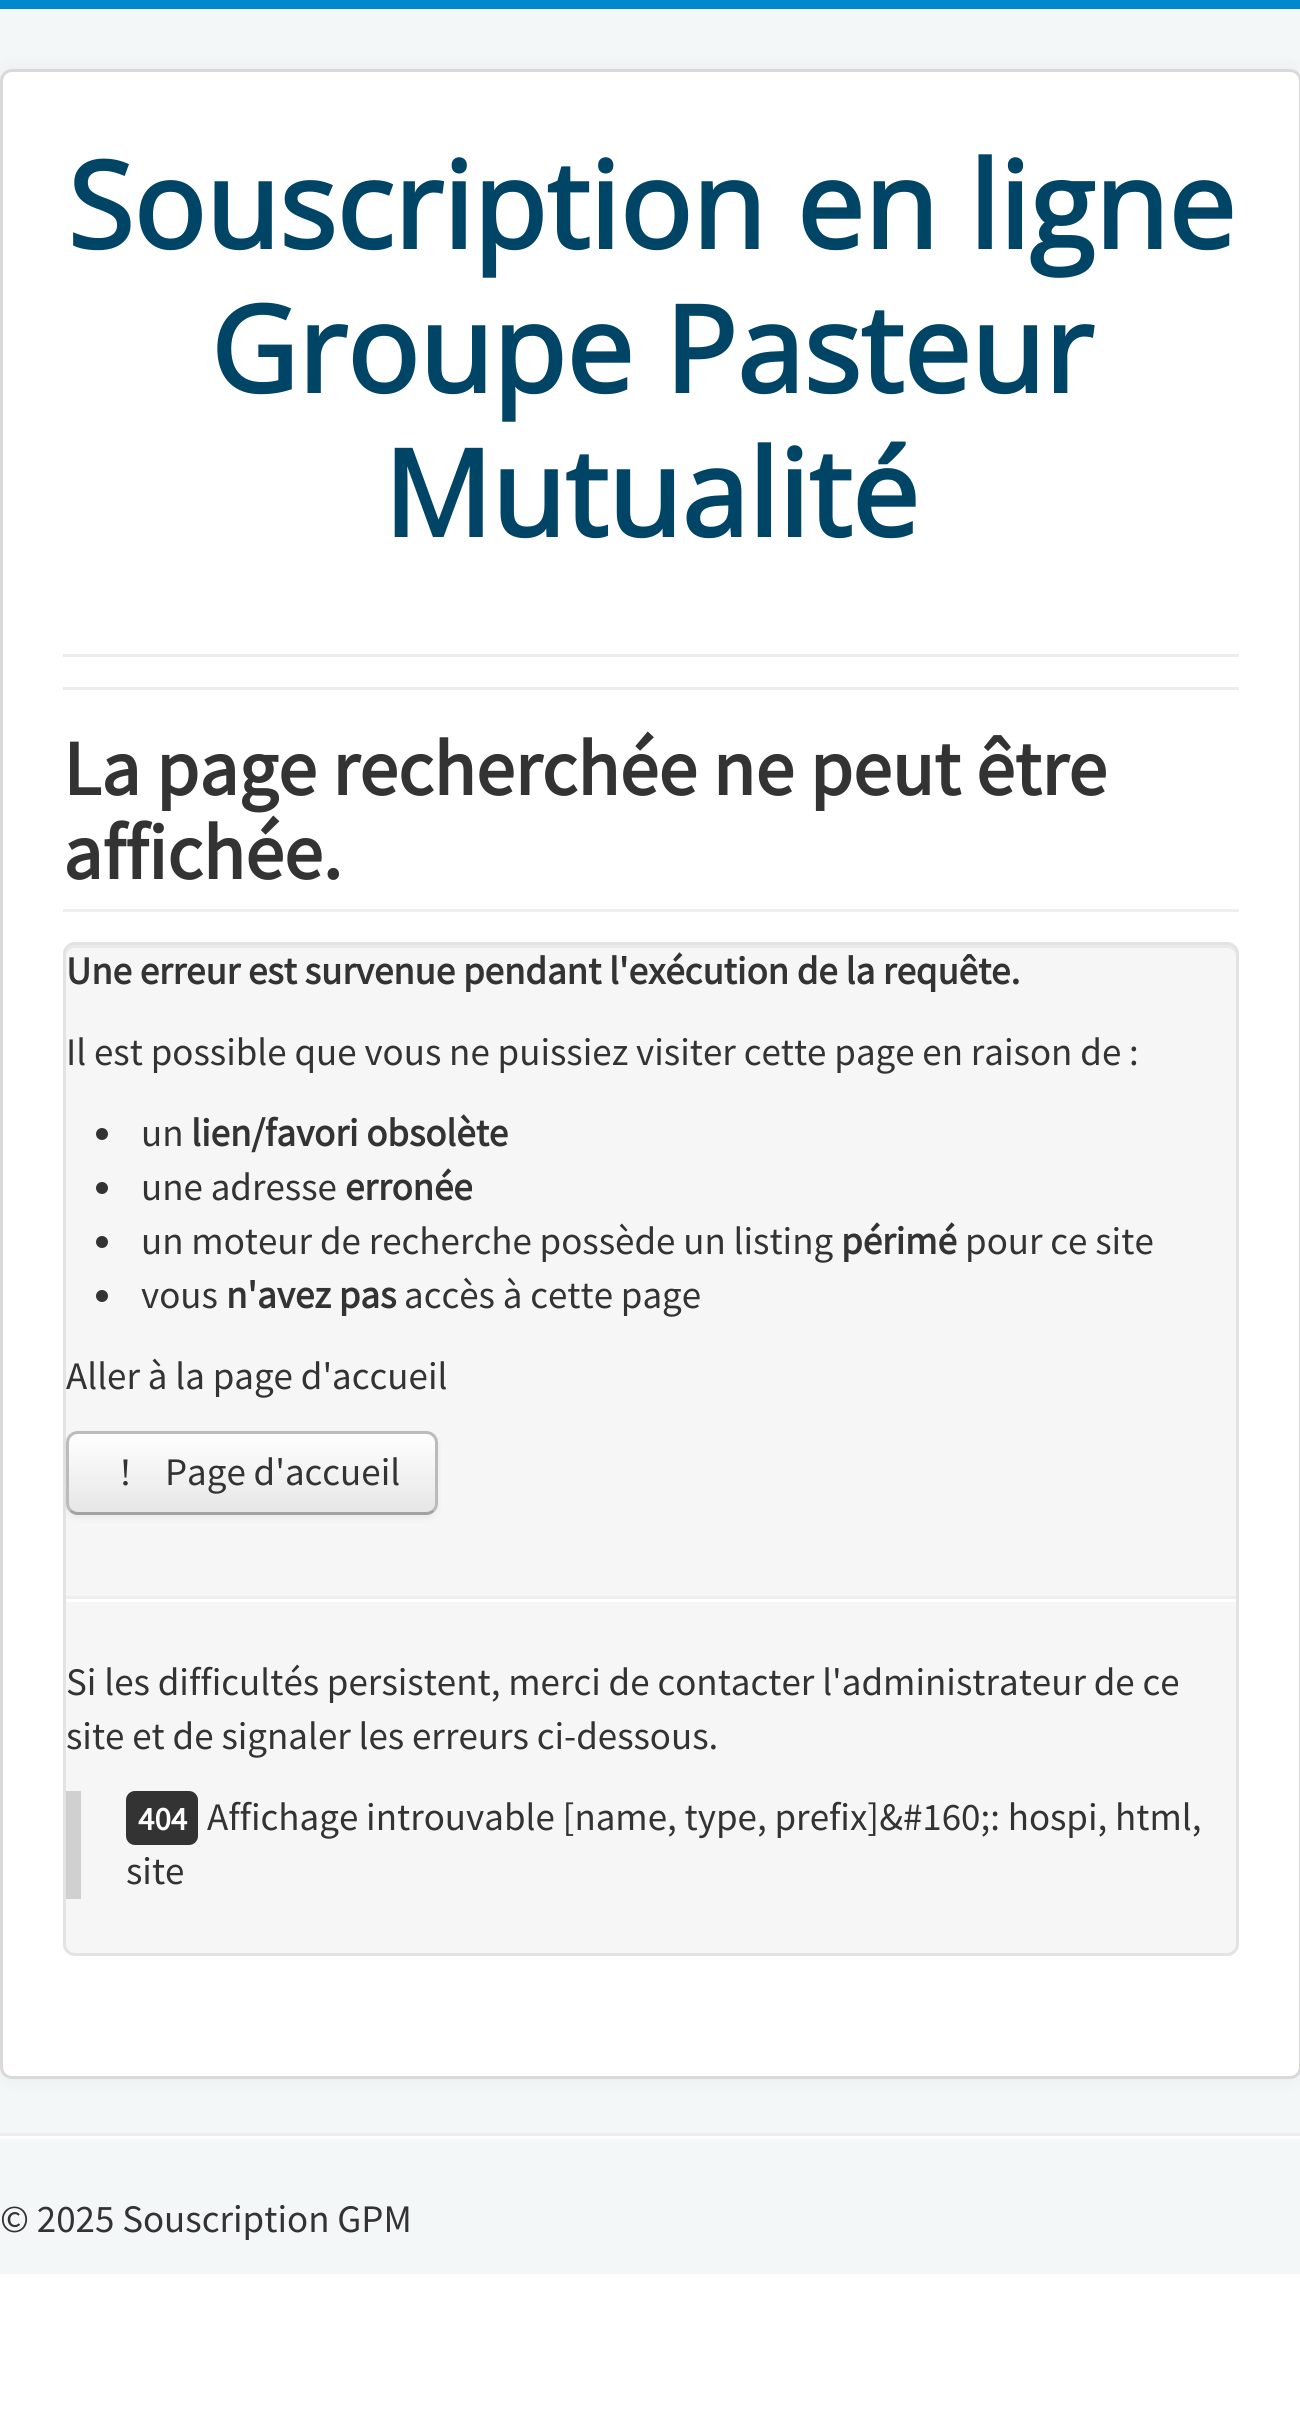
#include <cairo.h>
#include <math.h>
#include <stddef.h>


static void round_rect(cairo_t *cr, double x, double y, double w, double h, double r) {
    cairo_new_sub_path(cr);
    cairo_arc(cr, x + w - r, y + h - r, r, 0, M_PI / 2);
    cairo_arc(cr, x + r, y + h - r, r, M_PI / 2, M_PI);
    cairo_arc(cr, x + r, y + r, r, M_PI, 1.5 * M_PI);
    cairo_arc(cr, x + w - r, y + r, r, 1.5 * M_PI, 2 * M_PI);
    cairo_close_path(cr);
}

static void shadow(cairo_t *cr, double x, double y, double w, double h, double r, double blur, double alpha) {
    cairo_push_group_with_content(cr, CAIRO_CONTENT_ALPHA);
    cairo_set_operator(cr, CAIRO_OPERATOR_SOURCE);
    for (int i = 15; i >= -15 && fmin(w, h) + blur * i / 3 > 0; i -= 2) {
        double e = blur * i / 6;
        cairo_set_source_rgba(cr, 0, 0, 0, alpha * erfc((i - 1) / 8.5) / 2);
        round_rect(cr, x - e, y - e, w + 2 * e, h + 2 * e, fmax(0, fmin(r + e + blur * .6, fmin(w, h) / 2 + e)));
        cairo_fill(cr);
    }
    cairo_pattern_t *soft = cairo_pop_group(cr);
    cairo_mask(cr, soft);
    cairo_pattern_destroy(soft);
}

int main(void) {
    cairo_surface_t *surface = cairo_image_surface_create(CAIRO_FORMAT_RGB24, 1300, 2417);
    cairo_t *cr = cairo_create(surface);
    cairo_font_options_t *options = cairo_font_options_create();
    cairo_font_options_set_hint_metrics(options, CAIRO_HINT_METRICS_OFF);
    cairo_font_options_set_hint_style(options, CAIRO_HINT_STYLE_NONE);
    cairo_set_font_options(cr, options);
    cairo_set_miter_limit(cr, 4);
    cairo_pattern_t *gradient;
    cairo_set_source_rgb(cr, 1, 1, 1);
    cairo_paint(cr);
    cairo_set_source_rgb(cr, 0.957, 0.965, 0.969);
    cairo_rectangle(cr, 0, 9, 1300, 2265);
    cairo_fill(cr);
    cairo_set_source_rgb(cr, 0, 0.533, 0.8);
    cairo_rectangle(cr, 0, 0, 1300, 9);
    cairo_fill(cr);
    cairo_set_source_rgb(cr, 0, 0, 0);
    shadow(cr, 0, 69, 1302, 2010, 12, 9, 0.05);
    cairo_set_source_rgb(cr, 1, 1, 1);
    round_rect(cr, 0, 69, 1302, 2010, 12);
    cairo_fill(cr);
    round_rect(cr, 1.5, 70.5, 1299, 2007, 10.5);
    cairo_set_source_rgba(cr, 0, 0, 0, 0.15);
    cairo_set_line_width(cr, 3);
    cairo_stroke(cr);
    cairo_select_font_face(cr, "Open Sans", CAIRO_FONT_SLANT_NORMAL, CAIRO_FONT_WEIGHT_BOLD);
    cairo_set_font_size(cr, 120);
    cairo_set_source_rgb(cr, 0, 0.267, 0.4);
    cairo_move_to(cr, 67, 249);
    cairo_show_text(cr, "Souscription en ligne");
    cairo_move_to(cr, 210, 393);
    cairo_show_text(cr, "Groupe Pasteur");
    cairo_move_to(cr, 383, 537);
    cairo_show_text(cr, "Mutualité");
    cairo_set_source_rgb(cr, 0.925, 0.925, 0.925);
    cairo_rectangle(cr, 63, 654, 1176, 3);
    cairo_fill(cr);
    cairo_rectangle(cr, 63, 687, 1176, 3);
    cairo_fill(cr);
    cairo_set_source_rgb(cr, 0.933, 0.933, 0.933);
    cairo_rectangle(cr, 63, 909, 1176, 3);
    cairo_fill(cr);
    cairo_select_font_face(cr, "Source Sans Pro", CAIRO_FONT_SLANT_NORMAL, CAIRO_FONT_WEIGHT_BOLD);
    cairo_set_font_size(cr, 78);
    cairo_set_source_rgb(cr, 0.2, 0.2, 0.2);
    cairo_move_to(cr, 63, 795);
    cairo_show_text(cr, "La page recherchée ne peut être");
    cairo_move_to(cr, 63, 879);
    cairo_show_text(cr, "affichée.");
    cairo_set_source_rgb(cr, 0.961, 0.961, 0.961);
    round_rect(cr, 63, 942, 1176, 1014, 12);
    cairo_fill(cr);
    cairo_set_source_rgb(cr, 0.914, 0.914, 0.914);
    cairo_new_path(cr);
    cairo_move_to(cr, 75, 948);
    cairo_line_to(cr, 1227, 948);
    cairo_curve_to(cr, 1232, 948, 1236, 952, 1236, 957);
    cairo_line_to(cr, 1236, 954);
    cairo_curve_to(cr, 1236, 949, 1232, 945, 1227, 945);
    cairo_line_to(cr, 75, 945);
    cairo_curve_to(cr, 70, 945, 66, 949, 66, 954);
    cairo_line_to(cr, 66, 957);
    cairo_curve_to(cr, 66, 952, 70, 948, 75, 948);
    cairo_close_path(cr);
    cairo_fill(cr);
    round_rect(cr, 64.5, 943.5, 1173, 1011, 10.5);
    cairo_set_source_rgb(cr, 0.89, 0.89, 0.89);
    cairo_stroke(cr);
    cairo_set_font_size(cr, 39);
    cairo_set_source_rgb(cr, 0.2, 0.2, 0.2);
    cairo_move_to(cr, 66, 984);
    cairo_show_text(cr, "Une erreur est survenue pendant l'exécution de la requête.");
    cairo_select_font_face(cr, "Source Sans Pro", CAIRO_FONT_SLANT_NORMAL, CAIRO_FONT_WEIGHT_NORMAL);
    cairo_move_to(cr, 66, 1065);
    cairo_show_text(cr, "Il est possible que vous ne puissiez visiter cette page en raison de :");
    cairo_new_path(cr);
    cairo_arc(cr, 102, 1134, 6, 0, 2 * M_PI);
    cairo_fill(cr);
    cairo_move_to(cr, 141, 1146);
    cairo_show_text(cr, "un");
    cairo_select_font_face(cr, "Source Sans Pro", CAIRO_FONT_SLANT_NORMAL, CAIRO_FONT_WEIGHT_BOLD);
    cairo_move_to(cr, 191, 1146);
    cairo_show_text(cr, "lien/favori obsolète");
    cairo_new_path(cr);
    cairo_arc(cr, 102, 1188, 6, 0, 2 * M_PI);
    cairo_fill(cr);
    cairo_select_font_face(cr, "Source Sans Pro", CAIRO_FONT_SLANT_NORMAL, CAIRO_FONT_WEIGHT_NORMAL);
    cairo_move_to(cr, 141, 1200);
    cairo_show_text(cr, "une adresse");
    cairo_select_font_face(cr, "Source Sans Pro", CAIRO_FONT_SLANT_NORMAL, CAIRO_FONT_WEIGHT_BOLD);
    cairo_move_to(cr, 345, 1200);
    cairo_show_text(cr, "erronée");
    cairo_new_path(cr);
    cairo_arc(cr, 102, 1242, 6, 0, 2 * M_PI);
    cairo_fill(cr);
    cairo_select_font_face(cr, "Source Sans Pro", CAIRO_FONT_SLANT_NORMAL, CAIRO_FONT_WEIGHT_NORMAL);
    cairo_move_to(cr, 141, 1254);
    cairo_show_text(cr, "un moteur de recherche possède un listing");
    cairo_select_font_face(cr, "Source Sans Pro", CAIRO_FONT_SLANT_NORMAL, CAIRO_FONT_WEIGHT_BOLD);
    cairo_move_to(cr, 841, 1254);
    cairo_show_text(cr, "périmé");
    cairo_select_font_face(cr, "Source Sans Pro", CAIRO_FONT_SLANT_NORMAL, CAIRO_FONT_WEIGHT_NORMAL);
    cairo_move_to(cr, 965, 1254);
    cairo_show_text(cr, "pour ce site");
    cairo_new_path(cr);
    cairo_arc(cr, 102, 1296, 6, 0, 2 * M_PI);
    cairo_fill(cr);
    cairo_move_to(cr, 141, 1308);
    cairo_show_text(cr, "vous");
    cairo_select_font_face(cr, "Source Sans Pro", CAIRO_FONT_SLANT_NORMAL, CAIRO_FONT_WEIGHT_BOLD);
    cairo_move_to(cr, 226, 1308);
    cairo_show_text(cr, "n'avez pas");
    cairo_select_font_face(cr, "Source Sans Pro", CAIRO_FONT_SLANT_NORMAL, CAIRO_FONT_WEIGHT_NORMAL);
    cairo_move_to(cr, 404, 1308);
    cairo_show_text(cr, "accès à cette page");
    cairo_move_to(cr, 66, 1389);
    cairo_show_text(cr, "Aller à la page d'accueil");
    cairo_set_source_rgb(cr, 0, 0, 0);
    shadow(cr, 66, 1434, 372, 84, 12, 3, 0.05);
    cairo_save(cr);
    round_rect(cr, 66, 1431, 372, 84, 12);
    cairo_clip(cr);
    gradient = cairo_pattern_create_linear(252, 1434, 252, 1512);
    cairo_pattern_add_color_stop_rgba(gradient, 0, 1, 1, 1, 1);
    cairo_pattern_add_color_stop_rgba(gradient, 1, 0.902, 0.902, 0.902, 1);
    cairo_set_source(cr, gradient);
    cairo_pattern_destroy(gradient);
    cairo_rectangle(cr, 66, 1434, 372, 78);
    cairo_fill(cr);
    cairo_restore(cr);
    cairo_new_path(cr);
    cairo_move_to(cr, 433.5, 1510.5);
    cairo_curve_to(cr, 431.5, 1512.5, 429, 1513.5, 426, 1513.5);
    cairo_line_to(cr, 78, 1513.5);
    cairo_curve_to(cr, 75, 1513.5, 72.5, 1512.5, 70.5, 1510.5);
    cairo_set_source_rgb(cr, 0.635, 0.635, 0.635);
    cairo_stroke(cr);
    cairo_new_path(cr);
    cairo_move_to(cr, 70.5, 1510.5);
    cairo_curve_to(cr, 68.5, 1508.5, 67.5, 1506, 67.5, 1503);
    cairo_line_to(cr, 67.5, 1443);
    cairo_curve_to(cr, 67.5, 1440, 68.5, 1437.5, 70.5, 1435.5);
    cairo_curve_to(cr, 72.5, 1433.5, 75, 1432.5, 78, 1432.5);
    cairo_line_to(cr, 426, 1432.5);
    cairo_curve_to(cr, 429, 1432.5, 431.5, 1433.5, 433.5, 1435.5);
    cairo_curve_to(cr, 435.5, 1437.5, 436.5, 1440, 436.5, 1443);
    cairo_line_to(cr, 436.5, 1503);
    cairo_curve_to(cr, 436.5, 1506, 435.5, 1508.5, 433.5, 1510.5);
    cairo_set_source_rgb(cr, 0.733, 0.733, 0.733);
    cairo_stroke(cr);
    cairo_select_font_face(cr, "Liberation Serif", CAIRO_FONT_SLANT_NORMAL, CAIRO_FONT_WEIGHT_NORMAL);
    cairo_set_source_rgb(cr, 0.2, 0.2, 0.2);
    cairo_move_to(cr, 119, 1485);
    cairo_show_text(cr, "!");
    cairo_select_font_face(cr, "Source Sans Pro", CAIRO_FONT_SLANT_NORMAL, CAIRO_FONT_WEIGHT_NORMAL);
    cairo_move_to(cr, 165, 1485);
    cairo_show_text(cr, "Page d'accueil");
    cairo_set_source_rgb(cr, 0.933, 0.933, 0.933);
    cairo_rectangle(cr, 66, 1596, 1170, 3);
    cairo_fill(cr);
    cairo_set_source_rgb(cr, 1, 1, 1);
    cairo_rectangle(cr, 66, 1599, 1170, 3);
    cairo_fill(cr);
    cairo_set_source_rgb(cr, 0.2, 0.2, 0.2);
    cairo_move_to(cr, 66, 1695);
    cairo_show_text(cr, "Si les difficultés persistent, merci de contacter l'administrateur de ce");
    cairo_move_to(cr, 66, 1749);
    cairo_show_text(cr, "site et de signaler les erreurs ci-dessous.");
    cairo_set_source_rgb(cr, 0.816, 0.816, 0.816);
    cairo_rectangle(cr, 66, 1791, 15, 108);
    cairo_fill(cr);
    cairo_set_source_rgb(cr, 0.2, 0.2, 0.2);
    round_rect(cr, 126, 1791, 72, 54, 9);
    cairo_fill(cr);
    cairo_select_font_face(cr, "Source Sans Pro", CAIRO_FONT_SLANT_NORMAL, CAIRO_FONT_WEIGHT_BOLD);
    cairo_set_font_size(cr, 33);
    cairo_set_source_rgb(cr, 1, 1, 1);
    cairo_move_to(cr, 138, 1830);
    cairo_show_text(cr, "404");
    cairo_select_font_face(cr, "Source Sans Pro", CAIRO_FONT_SLANT_NORMAL, CAIRO_FONT_WEIGHT_NORMAL);
    cairo_set_font_size(cr, 39);
    cairo_set_source_rgb(cr, 0.2, 0.2, 0.2);
    cairo_move_to(cr, 207, 1830);
    cairo_show_text(cr, "Affichage introuvable [name, type, prefix]&#160;: hospi, html,");
    cairo_move_to(cr, 126, 1884);
    cairo_show_text(cr, "site");
    cairo_set_source_rgb(cr, 0.933, 0.933, 0.933);
    cairo_rectangle(cr, 0, 2133, 1300, 3);
    cairo_fill(cr);
    cairo_set_source_rgb(cr, 1, 1, 1);
    cairo_rectangle(cr, 0, 2136, 1300, 3);
    cairo_fill(cr);
    cairo_set_source_rgb(cr, 0.2, 0.2, 0.2);
    cairo_move_to(cr, 0, 2232);
    cairo_show_text(cr, "© 2025 Souscription GPM");
    cairo_surface_write_to_png(surface, "page.png");
    cairo_font_options_destroy(options);
    cairo_destroy(cr);
    cairo_surface_destroy(surface);
    return 0;
}
